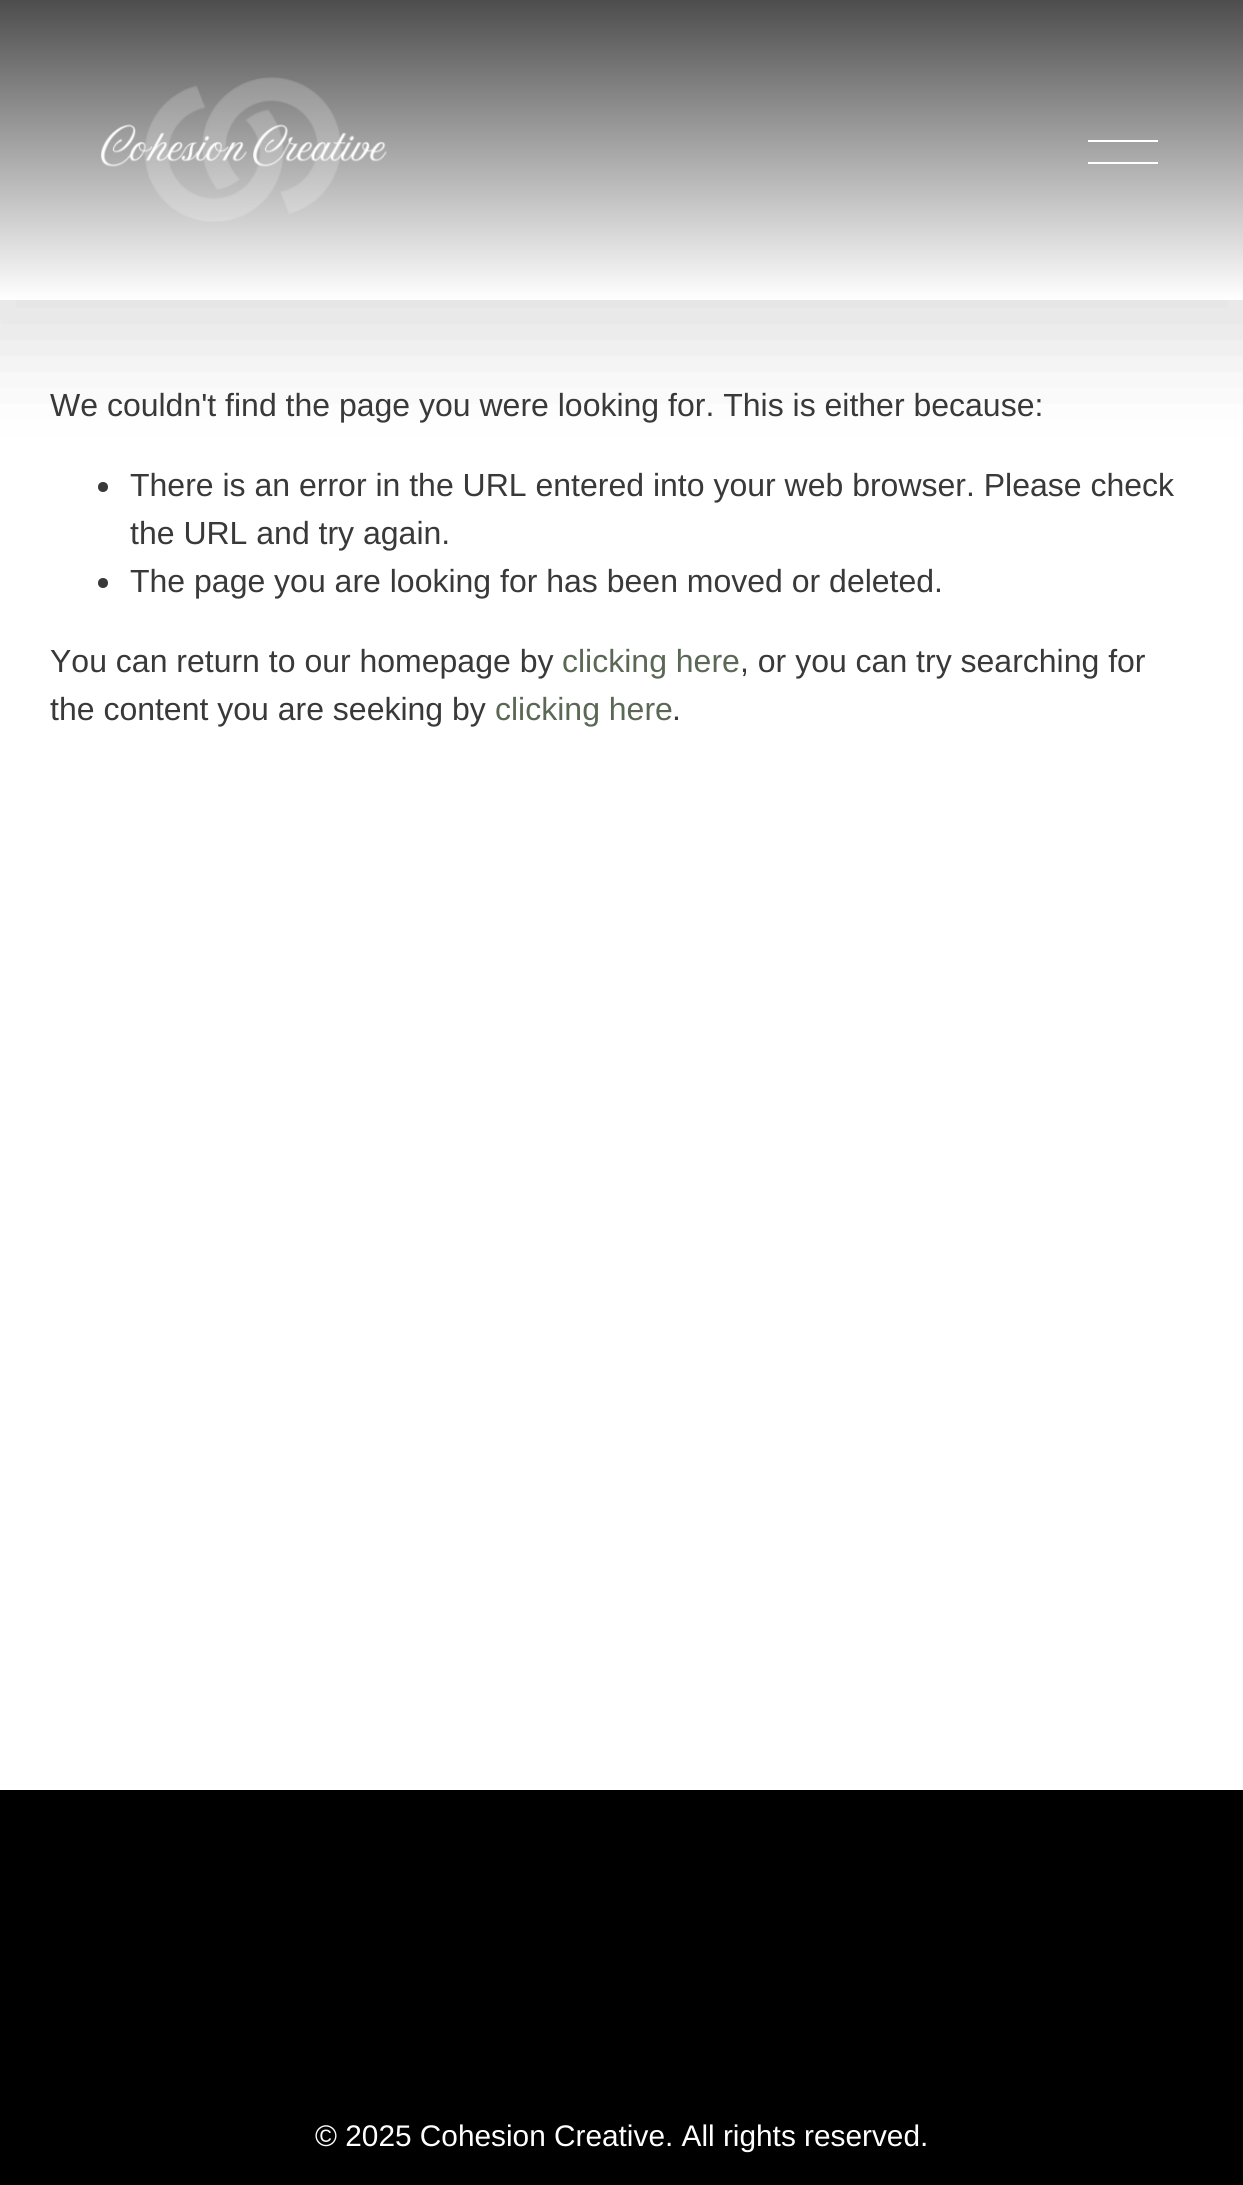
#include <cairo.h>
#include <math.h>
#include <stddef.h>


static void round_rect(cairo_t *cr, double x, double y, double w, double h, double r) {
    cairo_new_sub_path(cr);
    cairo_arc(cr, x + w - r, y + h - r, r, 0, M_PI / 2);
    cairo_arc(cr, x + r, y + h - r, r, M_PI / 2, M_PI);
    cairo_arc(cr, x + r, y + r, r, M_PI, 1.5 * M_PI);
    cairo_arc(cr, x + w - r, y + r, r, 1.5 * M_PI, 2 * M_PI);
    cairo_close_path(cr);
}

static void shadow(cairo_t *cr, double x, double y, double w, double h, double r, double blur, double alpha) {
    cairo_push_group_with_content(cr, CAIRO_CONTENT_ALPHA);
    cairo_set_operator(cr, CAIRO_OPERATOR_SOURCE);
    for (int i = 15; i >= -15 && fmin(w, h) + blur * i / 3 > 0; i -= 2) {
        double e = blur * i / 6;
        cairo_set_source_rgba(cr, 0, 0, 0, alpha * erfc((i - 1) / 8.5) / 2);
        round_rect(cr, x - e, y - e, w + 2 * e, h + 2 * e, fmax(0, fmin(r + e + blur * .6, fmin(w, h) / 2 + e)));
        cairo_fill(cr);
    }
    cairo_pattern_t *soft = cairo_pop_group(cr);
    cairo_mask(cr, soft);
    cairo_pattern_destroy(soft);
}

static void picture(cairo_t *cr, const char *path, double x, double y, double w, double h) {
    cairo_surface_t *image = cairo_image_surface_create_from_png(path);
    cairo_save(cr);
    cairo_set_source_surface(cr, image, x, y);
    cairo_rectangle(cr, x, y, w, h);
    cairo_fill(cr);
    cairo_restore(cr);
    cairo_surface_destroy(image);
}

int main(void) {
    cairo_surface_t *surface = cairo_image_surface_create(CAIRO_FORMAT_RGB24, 1243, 2185);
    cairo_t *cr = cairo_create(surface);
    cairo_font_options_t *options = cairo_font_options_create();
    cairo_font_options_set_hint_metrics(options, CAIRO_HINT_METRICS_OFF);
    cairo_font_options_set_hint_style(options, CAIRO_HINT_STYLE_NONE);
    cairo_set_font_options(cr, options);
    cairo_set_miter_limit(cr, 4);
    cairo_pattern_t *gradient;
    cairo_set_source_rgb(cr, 1, 1, 1);
    cairo_paint(cr);
    cairo_set_source_rgb(cr, 0.224, 0.224, 0.224);
    cairo_arc(cr, 103, 487, 5, 0, 2 * M_PI);
    cairo_fill(cr);
    cairo_set_source_rgb(cr, 0.224, 0.224, 0.224);
    shadow(cr, -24, 0, 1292, 348, 0, 48, 0.15);
    gradient = cairo_pattern_create_linear(622, 0, 622, 300);
    cairo_pattern_add_color_stop_rgba(gradient, 0, 0.302, 0.302, 0.302, 1);
    cairo_pattern_add_color_stop_rgba(gradient, 1, 1, 1, 1, 1);
    cairo_set_source(cr, gradient);
    cairo_pattern_destroy(gradient);
    cairo_rectangle(cr, 0, 0, 1243, 300);
    cairo_fill(cr);
    picture(cr, "img1.png", 101, 77, 286, 145);
    cairo_set_source_rgb(cr, 1, 1, 1);
    cairo_rectangle(cr, 1088, 140, 70, 2);
    cairo_fill(cr);
    cairo_rectangle(cr, 1088, 162, 70, 2);
    cairo_fill(cr);
    cairo_select_font_face(cr, "Liberation Sans", CAIRO_FONT_SLANT_NORMAL, CAIRO_FONT_WEIGHT_NORMAL);
    cairo_set_font_size(cr, 32);
    cairo_set_source_rgb(cr, 0.224, 0.224, 0.224);
    cairo_move_to(cr, 50, 416);
    cairo_show_text(cr, "We couldn't find the page you were looking for. This is either because:");
    cairo_move_to(cr, 130, 496);
    cairo_show_text(cr, "There is an error in the URL entered into your web browser. Please check");
    cairo_move_to(cr, 130, 544);
    cairo_show_text(cr, "the URL and try again.");
    cairo_new_path(cr);
    cairo_arc(cr, 103, 583, 5, 0, 2 * M_PI);
    cairo_fill(cr);
    cairo_move_to(cr, 130, 592);
    cairo_show_text(cr, "The page you are looking for has been moved or deleted.");
    cairo_move_to(cr, 50, 672);
    cairo_show_text(cr, "You can return to our homepage by");
    cairo_set_source_rgb(cr, 0.353, 0.408, 0.333);
    cairo_move_to(cr, 562, 672);
    cairo_show_text(cr, "clicking here");
    cairo_set_source_rgb(cr, 0.224, 0.224, 0.224);
    cairo_move_to(cr, 740, 672);
    cairo_show_text(cr, ", or you can try searching for");
    cairo_move_to(cr, 50, 720);
    cairo_show_text(cr, "the content you are seeking by");
    cairo_set_source_rgb(cr, 0.353, 0.408, 0.333);
    cairo_move_to(cr, 495, 720);
    cairo_show_text(cr, "clicking here");
    cairo_set_source_rgb(cr, 0.224, 0.224, 0.224);
    cairo_move_to(cr, 672, 720);
    cairo_show_text(cr, ".");
    cairo_set_source_rgb(cr, 0, 0, 0);
    cairo_rectangle(cr, 0, 1790, 1243, 395);
    cairo_fill(cr);
    cairo_set_font_size(cr, 29.8);
    cairo_set_source_rgb(cr, 1, 1, 1);
    cairo_move_to(cr, 315, 2146);
    cairo_show_text(cr, "© 2025 Cohesion Creative. All rights reserved.");
    cairo_surface_write_to_png(surface, "page.png");
    cairo_font_options_destroy(options);
    cairo_destroy(cr);
    cairo_surface_destroy(surface);
    return 0;
}
